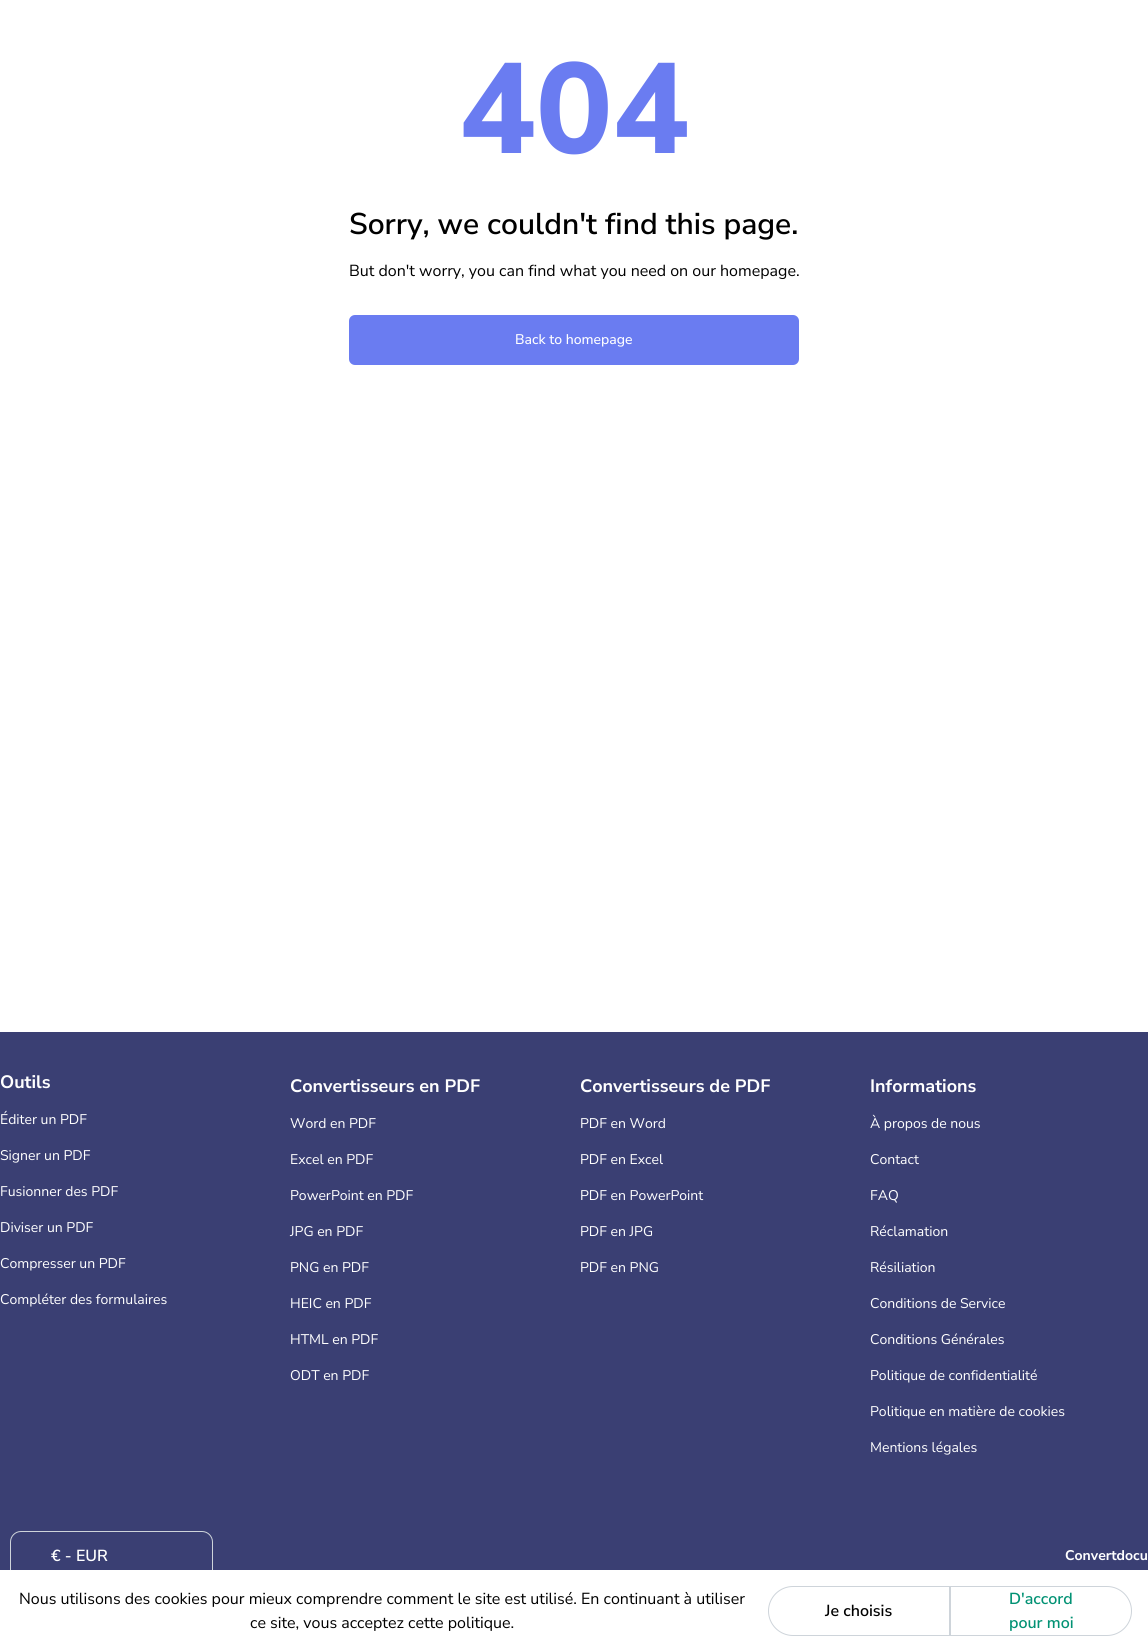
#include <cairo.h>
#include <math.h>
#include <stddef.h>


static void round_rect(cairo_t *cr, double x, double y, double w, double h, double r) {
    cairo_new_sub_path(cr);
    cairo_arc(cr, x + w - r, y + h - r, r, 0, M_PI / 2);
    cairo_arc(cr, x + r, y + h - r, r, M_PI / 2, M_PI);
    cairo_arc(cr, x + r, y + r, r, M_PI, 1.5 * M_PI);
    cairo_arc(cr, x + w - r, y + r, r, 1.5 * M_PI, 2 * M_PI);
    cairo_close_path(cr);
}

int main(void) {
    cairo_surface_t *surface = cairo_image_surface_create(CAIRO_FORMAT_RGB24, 1148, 1652);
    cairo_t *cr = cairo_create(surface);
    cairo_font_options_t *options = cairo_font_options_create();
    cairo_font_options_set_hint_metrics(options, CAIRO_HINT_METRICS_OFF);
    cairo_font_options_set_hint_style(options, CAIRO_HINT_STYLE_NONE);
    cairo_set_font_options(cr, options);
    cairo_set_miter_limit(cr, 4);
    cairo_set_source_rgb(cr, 1, 1, 1);
    cairo_paint(cr);
    cairo_select_font_face(cr, "Nunito Sans ExtraBold", CAIRO_FONT_SLANT_NORMAL, CAIRO_FONT_WEIGHT_NORMAL);
    cairo_set_font_size(cr, 128);
    cairo_set_source_rgb(cr, 0.416, 0.486, 0.945);
    cairo_move_to(cr, 459, 153);
    cairo_show_text(cr, "404");
    cairo_select_font_face(cr, "Nunito Sans SemiBold", CAIRO_FONT_SLANT_NORMAL, CAIRO_FONT_WEIGHT_NORMAL);
    cairo_set_font_size(cr, 30);
    cairo_set_source_rgb(cr, 0, 0, 0);
    cairo_move_to(cr, 349, 234);
    cairo_show_text(cr, "Sorry, we couldn't find this page.");
    cairo_select_font_face(cr, "Nunito Sans", CAIRO_FONT_SLANT_NORMAL, CAIRO_FONT_WEIGHT_NORMAL);
    cairo_set_font_size(cr, 16);
    cairo_move_to(cr, 349, 276);
    cairo_show_text(cr, "But don't worry, you can find what you need on our homepage.");
    cairo_set_source_rgb(cr, 0.416, 0.486, 0.945);
    round_rect(cr, 349, 315, 450, 50, 6);
    cairo_fill(cr);
    cairo_select_font_face(cr, "Nunito Sans Medium", CAIRO_FONT_SLANT_NORMAL, CAIRO_FONT_WEIGHT_NORMAL);
    cairo_set_font_size(cr, 14);
    cairo_set_source_rgb(cr, 1, 1, 1);
    cairo_move_to(cr, 515, 344);
    cairo_show_text(cr, "Back to homepage");
    cairo_set_source_rgb(cr, 0.227, 0.247, 0.451);
    cairo_rectangle(cr, 0, 1032, 1148, 538);
    cairo_fill(cr);
    cairo_select_font_face(cr, "Nunito Sans", CAIRO_FONT_SLANT_NORMAL, CAIRO_FONT_WEIGHT_BOLD);
    cairo_set_font_size(cr, 18);
    cairo_set_source_rgb(cr, 1, 1, 1);
    cairo_move_to(cr, 0, 1088);
    cairo_show_text(cr, "Outils");
    cairo_select_font_face(cr, "Nunito Sans", CAIRO_FONT_SLANT_NORMAL, CAIRO_FONT_WEIGHT_NORMAL);
    cairo_set_font_size(cr, 14);
    cairo_move_to(cr, 0, 1124);
    cairo_show_text(cr, "Éditer un PDF");
    cairo_move_to(cr, 0, 1160);
    cairo_show_text(cr, "Signer un PDF");
    cairo_move_to(cr, 0, 1196);
    cairo_show_text(cr, "Fusionner des PDF");
    cairo_move_to(cr, 0, 1232);
    cairo_show_text(cr, "Diviser un PDF");
    cairo_move_to(cr, 0, 1268);
    cairo_show_text(cr, "Compresser un PDF");
    cairo_move_to(cr, 0, 1304);
    cairo_show_text(cr, "Compléter des formulaires");
    cairo_select_font_face(cr, "Nunito Sans", CAIRO_FONT_SLANT_NORMAL, CAIRO_FONT_WEIGHT_BOLD);
    cairo_set_font_size(cr, 18);
    cairo_move_to(cr, 290, 1092);
    cairo_show_text(cr, "Convertisseurs en PDF");
    cairo_select_font_face(cr, "Nunito Sans", CAIRO_FONT_SLANT_NORMAL, CAIRO_FONT_WEIGHT_NORMAL);
    cairo_set_font_size(cr, 14);
    cairo_move_to(cr, 290, 1128);
    cairo_show_text(cr, "Word en PDF");
    cairo_move_to(cr, 290, 1164);
    cairo_show_text(cr, "Excel en PDF");
    cairo_move_to(cr, 290, 1200);
    cairo_show_text(cr, "PowerPoint en PDF");
    cairo_move_to(cr, 290, 1236);
    cairo_show_text(cr, "JPG en PDF");
    cairo_move_to(cr, 290, 1272);
    cairo_show_text(cr, "PNG en PDF");
    cairo_move_to(cr, 290, 1308);
    cairo_show_text(cr, "HEIC en PDF");
    cairo_move_to(cr, 290, 1344);
    cairo_show_text(cr, "HTML en PDF");
    cairo_move_to(cr, 290, 1380);
    cairo_show_text(cr, "ODT en PDF");
    cairo_select_font_face(cr, "Nunito Sans", CAIRO_FONT_SLANT_NORMAL, CAIRO_FONT_WEIGHT_BOLD);
    cairo_set_font_size(cr, 18);
    cairo_move_to(cr, 580, 1092);
    cairo_show_text(cr, "Convertisseurs de PDF");
    cairo_select_font_face(cr, "Nunito Sans", CAIRO_FONT_SLANT_NORMAL, CAIRO_FONT_WEIGHT_NORMAL);
    cairo_set_font_size(cr, 14);
    cairo_move_to(cr, 580, 1128);
    cairo_show_text(cr, "PDF en Word");
    cairo_move_to(cr, 580, 1164);
    cairo_show_text(cr, "PDF en Excel");
    cairo_move_to(cr, 580, 1200);
    cairo_show_text(cr, "PDF en PowerPoint");
    cairo_move_to(cr, 580, 1236);
    cairo_show_text(cr, "PDF en JPG");
    cairo_move_to(cr, 580, 1272);
    cairo_show_text(cr, "PDF en PNG");
    cairo_select_font_face(cr, "Nunito Sans", CAIRO_FONT_SLANT_NORMAL, CAIRO_FONT_WEIGHT_BOLD);
    cairo_set_font_size(cr, 18);
    cairo_move_to(cr, 870, 1092);
    cairo_show_text(cr, "Informations");
    cairo_select_font_face(cr, "Nunito Sans", CAIRO_FONT_SLANT_NORMAL, CAIRO_FONT_WEIGHT_NORMAL);
    cairo_set_font_size(cr, 14);
    cairo_move_to(cr, 870, 1128);
    cairo_show_text(cr, "À propos de nous");
    cairo_move_to(cr, 870, 1164);
    cairo_show_text(cr, "Contact");
    cairo_move_to(cr, 870, 1200);
    cairo_show_text(cr, "FAQ");
    cairo_move_to(cr, 870, 1236);
    cairo_show_text(cr, "Réclamation");
    cairo_move_to(cr, 870, 1272);
    cairo_show_text(cr, "Résiliation");
    cairo_move_to(cr, 870, 1308);
    cairo_show_text(cr, "Conditions de Service");
    cairo_move_to(cr, 870, 1344);
    cairo_show_text(cr, "Conditions Générales");
    cairo_move_to(cr, 870, 1380);
    cairo_show_text(cr, "Politique de confidentialité");
    cairo_move_to(cr, 870, 1416);
    cairo_show_text(cr, "Politique en matière de cookies");
    cairo_move_to(cr, 870, 1452);
    cairo_show_text(cr, "Mentions légales");
    round_rect(cr, 10.5, 1531.5, 202, 49, 10.5);
    cairo_set_source_rgb(cr, 0.808, 0.831, 0.855);
    cairo_set_line_width(cr, 1);
    cairo_stroke(cr);
    cairo_select_font_face(cr, "Nunito Sans SemiBold", CAIRO_FONT_SLANT_NORMAL, CAIRO_FONT_WEIGHT_NORMAL);
    cairo_set_font_size(cr, 16);
    cairo_set_source_rgb(cr, 1, 1, 1);
    cairo_move_to(cr, 51, 1561);
    cairo_show_text(cr, "€ - EUR");
    cairo_select_font_face(cr, "Nunito Sans", CAIRO_FONT_SLANT_NORMAL, CAIRO_FONT_WEIGHT_BOLD);
    cairo_set_font_size(cr, 14);
    cairo_move_to(cr, 1065, 1560);
    cairo_show_text(cr, "Convertdocu");
    cairo_rectangle(cr, 10, 1570, 203, 11);
    cairo_fill(cr);
    cairo_select_font_face(cr, "Nunito Sans", CAIRO_FONT_SLANT_NORMAL, CAIRO_FONT_WEIGHT_NORMAL);
    cairo_set_font_size(cr, 16);
    cairo_set_source_rgb(cr, 0, 0, 0);
    cairo_move_to(cr, 19, 1604);
    cairo_show_text(cr, "Nous utilisons des cookies pour mieux comprendre comment le site est utilisé. En continuant à utiliser");
    cairo_move_to(cr, 250, 1628);
    cairo_show_text(cr, "ce site, vous acceptez cette politique.");
    cairo_new_path(cr);
    cairo_move_to(cr, 793, 1586.5);
    cairo_line_to(cr, 949.5, 1586.5);
    cairo_line_to(cr, 949.5, 1635.5);
    cairo_line_to(cr, 793, 1635.5);
    cairo_curve_to(cr, 779.5, 1635.5, 768.5, 1624.5, 768.5, 1611);
    cairo_curve_to(cr, 768.5, 1597.5, 779.5, 1586.5, 793, 1586.5);
    cairo_close_path(cr);
    cairo_set_source_rgb(cr, 0.808, 0.831, 0.855);
    cairo_stroke(cr);
    cairo_select_font_face(cr, "Nunito Sans SemiBold", CAIRO_FONT_SLANT_NORMAL, CAIRO_FONT_WEIGHT_NORMAL);
    cairo_set_source_rgb(cr, 0, 0, 0);
    cairo_move_to(cr, 825, 1616);
    cairo_show_text(cr, "Je choisis");
    cairo_new_path(cr);
    cairo_move_to(cr, 950.5, 1586.5);
    cairo_line_to(cr, 1107, 1586.5);
    cairo_curve_to(cr, 1120.5, 1586.5, 1131.5, 1597.5, 1131.5, 1611);
    cairo_curve_to(cr, 1131.5, 1624.5, 1120.5, 1635.5, 1107, 1635.5);
    cairo_line_to(cr, 950.5, 1635.5);
    cairo_close_path(cr);
    cairo_set_source_rgb(cr, 0.808, 0.831, 0.855);
    cairo_stroke(cr);
    cairo_set_source_rgb(cr, 0.008, 0.573, 0.455);
    cairo_move_to(cr, 1009, 1604);
    cairo_show_text(cr, "D'accord");
    cairo_move_to(cr, 1009, 1628);
    cairo_show_text(cr, "pour moi");
    cairo_surface_write_to_png(surface, "page.png");
    cairo_font_options_destroy(options);
    cairo_destroy(cr);
    cairo_surface_destroy(surface);
    return 0;
}
